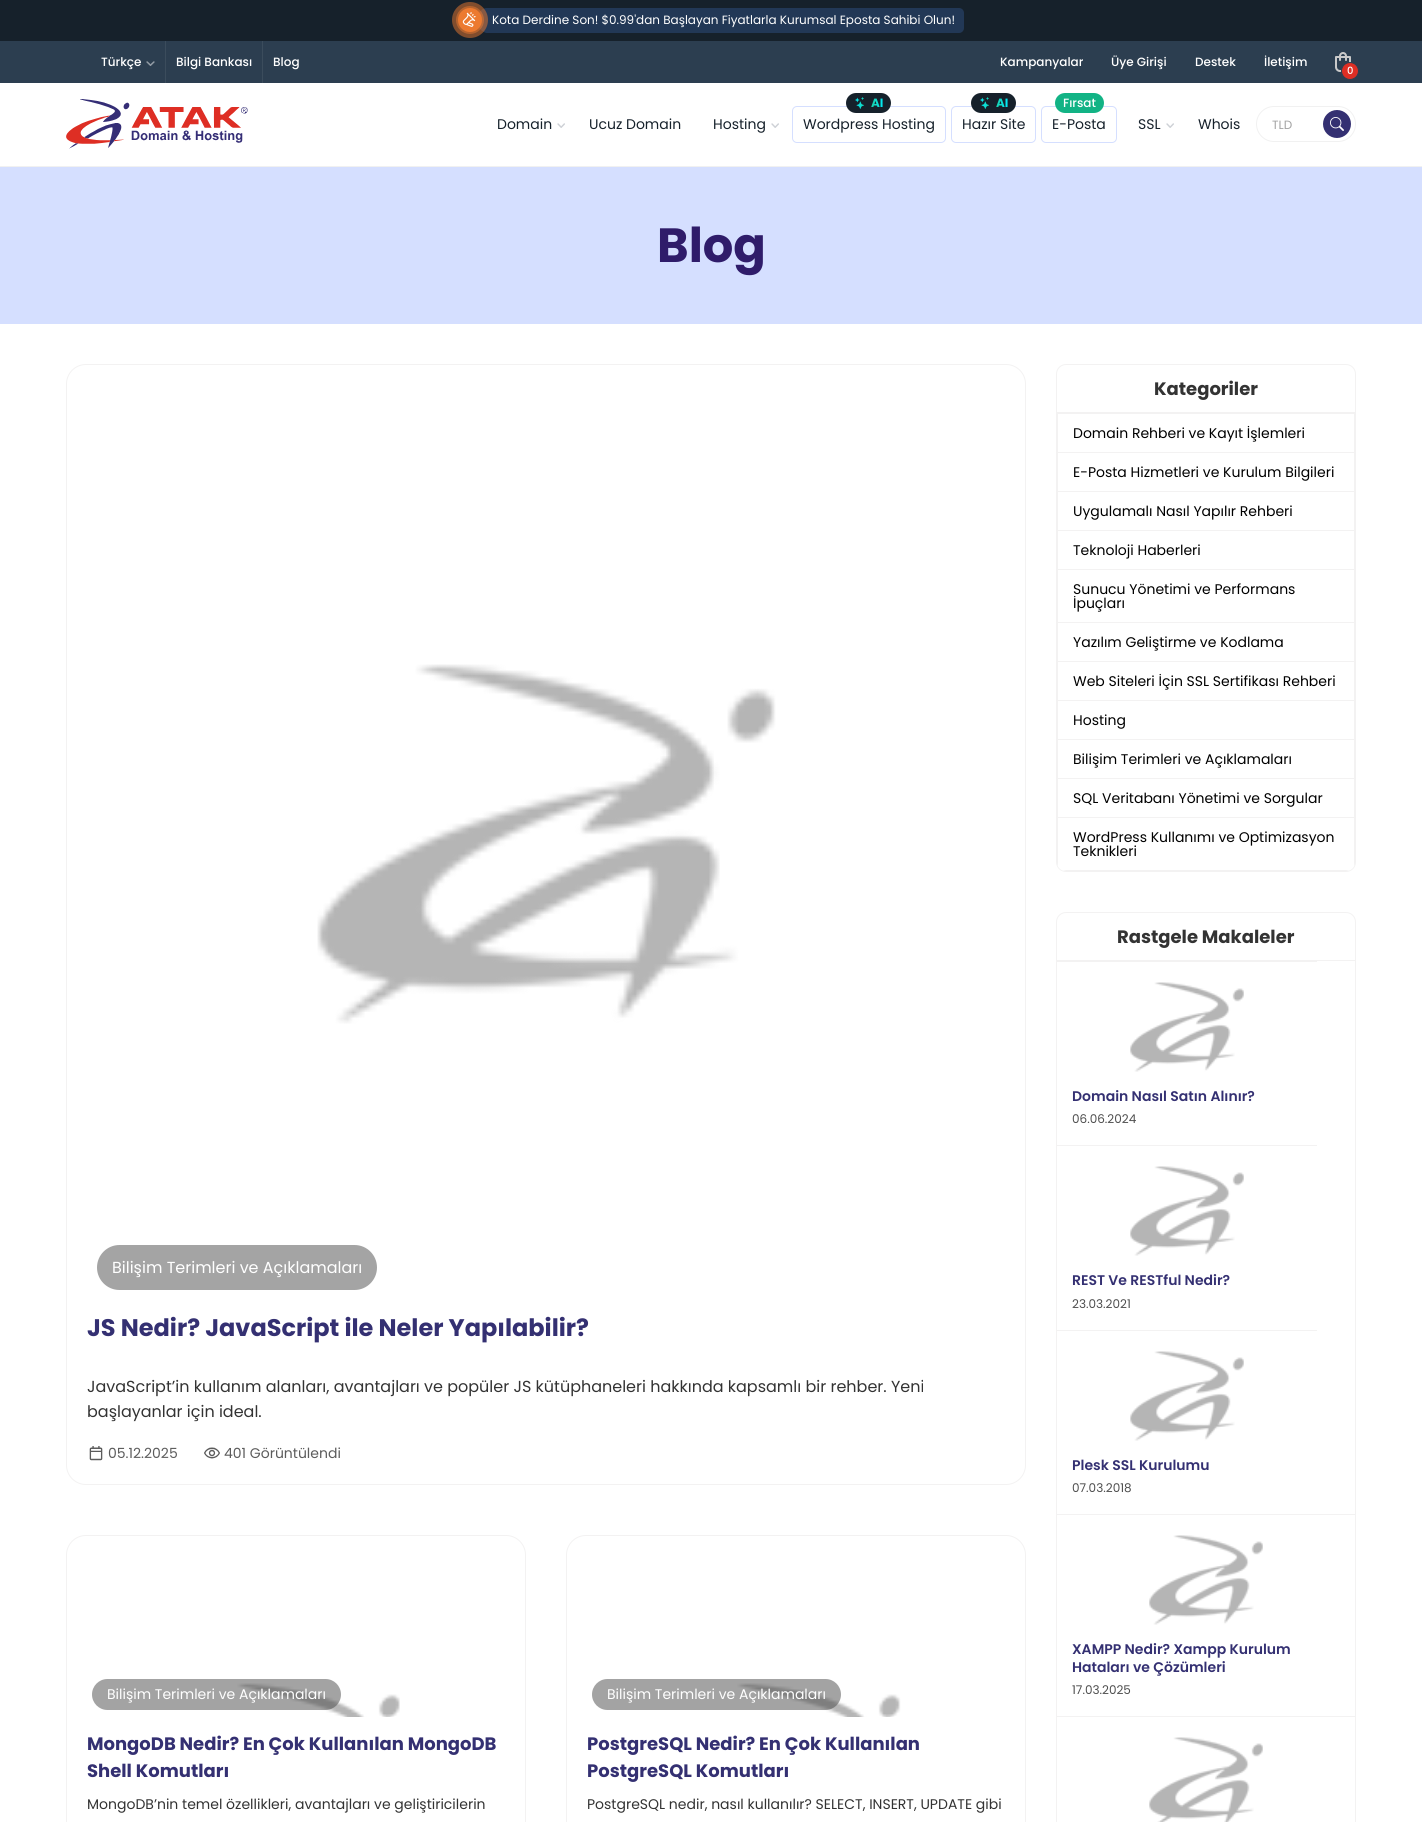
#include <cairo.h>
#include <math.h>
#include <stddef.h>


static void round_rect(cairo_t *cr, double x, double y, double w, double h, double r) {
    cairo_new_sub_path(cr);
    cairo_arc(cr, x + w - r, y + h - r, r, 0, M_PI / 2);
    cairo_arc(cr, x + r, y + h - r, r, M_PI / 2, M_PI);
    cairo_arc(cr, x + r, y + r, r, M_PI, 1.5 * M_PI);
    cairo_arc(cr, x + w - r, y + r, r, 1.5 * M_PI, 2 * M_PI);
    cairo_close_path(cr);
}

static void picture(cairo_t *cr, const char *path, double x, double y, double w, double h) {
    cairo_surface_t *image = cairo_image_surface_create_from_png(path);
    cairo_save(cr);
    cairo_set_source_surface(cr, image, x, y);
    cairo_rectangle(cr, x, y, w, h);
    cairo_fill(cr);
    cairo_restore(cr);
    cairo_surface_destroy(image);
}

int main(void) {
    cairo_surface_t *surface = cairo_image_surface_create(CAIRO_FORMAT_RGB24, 1422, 1822);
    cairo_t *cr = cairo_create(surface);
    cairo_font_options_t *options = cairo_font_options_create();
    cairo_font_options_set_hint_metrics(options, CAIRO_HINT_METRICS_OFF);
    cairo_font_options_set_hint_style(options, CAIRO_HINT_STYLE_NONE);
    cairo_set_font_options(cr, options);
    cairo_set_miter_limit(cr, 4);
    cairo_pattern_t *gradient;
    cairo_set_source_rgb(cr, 1, 1, 1);
    cairo_paint(cr);
    cairo_set_source_rgb(cr, 0.086, 0.129, 0.169);
    cairo_rectangle(cr, 0, 0, 1422, 41);
    cairo_fill(cr);
    cairo_set_source_rgb(cr, 0.133, 0.22, 0.337);
    round_rect(cr, 482, 8, 482, 25, 5);
    cairo_fill(cr);
    picture(cr, "img2.png", 479, 8, 7, 24);
    cairo_set_source_rgb(cr, 0.922, 0.482, 0.188);
    cairo_arc(cr, 470, 20, 12, 0, 2 * M_PI);
    cairo_fill(cr);
    cairo_set_source_rgba(cr, 0.922, 0.482, 0.188, 0.5);
    cairo_arc(cr, 470, 20, 18, 0, 2 * M_PI);
    cairo_fill(cr);
    cairo_arc(cr, 470, 20, 14, 0, 2 * M_PI);
    cairo_fill(cr);
    picture(cr, "img1.png", 462, 12, 14, 15);
    cairo_select_font_face(cr, "Poppins", CAIRO_FONT_SLANT_NORMAL, CAIRO_FONT_WEIGHT_NORMAL);
    cairo_set_font_size(cr, 12);
    cairo_set_source_rgb(cr, 1, 1, 1);
    cairo_move_to(cr, 492, 24);
    cairo_show_text(cr, "Kota Derdine Son! $0.99'dan Başlayan Fiyatlarla Kurumsal Eposta Sahibi Olun!");
    cairo_set_source_rgb(cr, 0.173, 0.243, 0.314);
    cairo_rectangle(cr, 0, 41, 1422, 42);
    cairo_fill(cr);
    cairo_select_font_face(cr, "Poppins Medium", CAIRO_FONT_SLANT_NORMAL, CAIRO_FONT_WEIGHT_NORMAL);
    cairo_set_source_rgb(cr, 1, 1, 1);
    cairo_move_to(cr, 101, 66);
    cairo_show_text(cr, "Türkçe");
    picture(cr, "img3.png", 146, 61, 9, 5);
    cairo_set_source_rgb(cr, 0.231, 0.298, 0.361);
    cairo_rectangle(cr, 165, 41, 1, 42);
    cairo_fill(cr);
    cairo_set_source_rgb(cr, 1, 1, 1);
    cairo_move_to(cr, 176, 66);
    cairo_show_text(cr, "Bilgi Bankası");
    cairo_set_source_rgb(cr, 0.231, 0.298, 0.361);
    cairo_rectangle(cr, 262, 41, 1, 42);
    cairo_fill(cr);
    cairo_set_source_rgb(cr, 1, 1, 1);
    cairo_move_to(cr, 273, 66);
    cairo_show_text(cr, "Blog");
    cairo_move_to(cr, 1000, 66);
    cairo_show_text(cr, "Kampanyalar");
    cairo_move_to(cr, 1111, 66);
    cairo_show_text(cr, "Üye Girişi");
    cairo_move_to(cr, 1195, 66);
    cairo_show_text(cr, "Destek");
    cairo_move_to(cr, 1264, 66);
    cairo_show_text(cr, "İletişim");
    picture(cr, "img4.png", 1335, 52, 16, 20);
    cairo_set_source_rgb(cr, 0.871, 0.18, 0.141);
    cairo_arc(cr, 1350, 71, 8.5, 0, 2 * M_PI);
    cairo_fill_preserve(cr);
    cairo_set_source_rgb(cr, 0.173, 0.243, 0.314);
    cairo_set_line_width(cr, 1);
    cairo_stroke(cr);
    cairo_set_font_size(cr, 10);
    cairo_set_source_rgb(cr, 1, 1, 1);
    cairo_move_to(cr, 1347, 74);
    cairo_show_text(cr, "0");
    cairo_set_source_rgb(cr, 0.945, 0.945, 0.945);
    cairo_rectangle(cr, 0, 166, 1422, 1);
    cairo_fill(cr);
    picture(cr, "img5.png", 66, 99, 182, 50);
    cairo_select_font_face(cr, "Poppins", CAIRO_FONT_SLANT_NORMAL, CAIRO_FONT_WEIGHT_NORMAL);
    cairo_set_font_size(cr, 14);
    cairo_set_source_rgb(cr, 0.086, 0.129, 0.169);
    cairo_move_to(cr, 497, 129);
    cairo_show_text(cr, "Domain");
    picture(cr, "img6.png", 557, 123, 8, 5);
    cairo_move_to(cr, 589, 129);
    cairo_show_text(cr, "Ucuz Domain");
    cairo_move_to(cr, 713, 129);
    cairo_show_text(cr, "Hosting");
    picture(cr, "img6.png", 771, 123, 8, 5);
    round_rect(cr, 792.5, 106.5, 153, 36, 4.5);
    cairo_set_source_rgb(cr, 0.835, 0.875, 1);
    cairo_stroke(cr);
    cairo_set_source_rgb(cr, 0.086, 0.129, 0.169);
    round_rect(cr, 846, 93, 45, 20, 10);
    cairo_fill(cr);
    picture(cr, "img7.png", 855, 97, 9, 12);
    cairo_select_font_face(cr, "Poppins", CAIRO_FONT_SLANT_NORMAL, CAIRO_FONT_WEIGHT_BOLD);
    cairo_set_font_size(cr, 12);
    gradient = cairo_pattern_create_linear(854, 103, 884, 103);
    cairo_pattern_add_color_stop_rgba(gradient, 0, 0, 0.933, 1, 1);
    cairo_pattern_add_color_stop_rgba(gradient, 0.5, 0.118, 0.8, 0.608, 1);
    cairo_pattern_add_color_stop_rgba(gradient, 1, 0, 0.933, 1, 1);
    cairo_set_source(cr, gradient);
    cairo_pattern_destroy(gradient);
    cairo_move_to(cr, 871, 107);
    cairo_show_text(cr, "AI");
    cairo_select_font_face(cr, "Poppins", CAIRO_FONT_SLANT_NORMAL, CAIRO_FONT_WEIGHT_NORMAL);
    cairo_set_font_size(cr, 14);
    cairo_set_source_rgb(cr, 0.086, 0.129, 0.169);
    cairo_move_to(cr, 803, 129);
    cairo_show_text(cr, "Wordpress Hosting");
    round_rect(cr, 951.5, 106.5, 84, 36, 4.5);
    cairo_set_source_rgb(cr, 0.835, 0.875, 1);
    cairo_stroke(cr);
    cairo_set_source_rgb(cr, 0.086, 0.129, 0.169);
    round_rect(cr, 971, 93, 45, 20, 10);
    cairo_fill(cr);
    picture(cr, "img8.png", 980, 97, 9, 12);
    cairo_select_font_face(cr, "Poppins", CAIRO_FONT_SLANT_NORMAL, CAIRO_FONT_WEIGHT_BOLD);
    cairo_set_font_size(cr, 12);
    gradient = cairo_pattern_create_linear(979, 103, 1008, 103);
    cairo_pattern_add_color_stop_rgba(gradient, 0, 0, 0.933, 1, 1);
    cairo_pattern_add_color_stop_rgba(gradient, 0.5, 0.118, 0.8, 0.608, 1);
    cairo_pattern_add_color_stop_rgba(gradient, 1, 0, 0.933, 1, 1);
    cairo_set_source(cr, gradient);
    cairo_pattern_destroy(gradient);
    cairo_move_to(cr, 996, 107);
    cairo_show_text(cr, "AI");
    cairo_select_font_face(cr, "Poppins", CAIRO_FONT_SLANT_NORMAL, CAIRO_FONT_WEIGHT_NORMAL);
    cairo_set_font_size(cr, 14);
    cairo_set_source_rgb(cr, 0.086, 0.129, 0.169);
    cairo_move_to(cr, 962, 129);
    cairo_show_text(cr, "Hazır Site");
    round_rect(cr, 1041.5, 106.5, 75, 36, 4.5);
    cairo_set_source_rgb(cr, 0.835, 0.875, 1);
    cairo_stroke(cr);
    cairo_set_source_rgb(cr, 0.071, 0.702, 0.522);
    round_rect(cr, 1055, 93, 49, 20, 10);
    cairo_fill(cr);
    cairo_select_font_face(cr, "Poppins Medium", CAIRO_FONT_SLANT_NORMAL, CAIRO_FONT_WEIGHT_NORMAL);
    cairo_set_font_size(cr, 12);
    cairo_set_source_rgb(cr, 1, 1, 1);
    cairo_move_to(cr, 1063, 107);
    cairo_show_text(cr, "Fırsat");
    cairo_select_font_face(cr, "Poppins", CAIRO_FONT_SLANT_NORMAL, CAIRO_FONT_WEIGHT_NORMAL);
    cairo_set_font_size(cr, 14);
    cairo_set_source_rgb(cr, 0.086, 0.129, 0.169);
    cairo_move_to(cr, 1052, 129);
    cairo_show_text(cr, "E-Posta");
    cairo_move_to(cr, 1138, 129);
    cairo_show_text(cr, "SSL");
    picture(cr, "img6.png", 1166, 123, 8, 5);
    cairo_move_to(cr, 1198, 129);
    cairo_show_text(cr, "Whois");
    round_rect(cr, 1256.5, 106.5, 99, 35, 17.5);
    cairo_set_source_rgb(cr, 0.945, 0.945, 0.945);
    cairo_stroke(cr);
    cairo_set_font_size(cr, 12);
    cairo_set_source_rgb(cr, 0.639, 0.639, 0.639);
    cairo_move_to(cr, 1272, 129);
    cairo_show_text(cr, "TLD");
    cairo_set_source_rgb(cr, 0.204, 0.188, 0.447);
    cairo_new_path(cr);
    cairo_arc(cr, 1337, 124, 14, 0, 2 * M_PI);
    cairo_fill(cr);
    picture(cr, "img9.png", 1330, 117, 14, 14);
    cairo_set_source_rgb(cr, 0.835, 0.875, 1);
    cairo_rectangle(cr, 0, 167, 1422, 157);
    cairo_fill(cr);
    cairo_select_font_face(cr, "Poppins", CAIRO_FONT_SLANT_NORMAL, CAIRO_FONT_WEIGHT_BOLD);
    cairo_set_font_size(cr, 48);
    cairo_set_source_rgb(cr, 0.184, 0.11, 0.416);
    cairo_move_to(cr, 657, 262);
    cairo_show_text(cr, "Blog");
    round_rect(cr, 66.5, 364.5, 959, 1120, 19.5);
    cairo_set_source_rgb(cr, 0.953, 0.949, 0.949);
    cairo_stroke(cr);
    picture(cr, "img10.png", 317, 664, 459, 360);
    cairo_set_source_rgb(cr, 0.643, 0.643, 0.643);
    round_rect(cr, 97, 1245, 280, 45, 22.5);
    cairo_fill(cr);
    cairo_select_font_face(cr, "Poppins", CAIRO_FONT_SLANT_NORMAL, CAIRO_FONT_WEIGHT_NORMAL);
    cairo_set_font_size(cr, 16);
    cairo_set_source_rgb(cr, 1, 1, 1);
    cairo_move_to(cr, 112, 1273);
    cairo_show_text(cr, "Bilişim Terimleri ve Açıklamaları");
    cairo_select_font_face(cr, "Poppins", CAIRO_FONT_SLANT_NORMAL, CAIRO_FONT_WEIGHT_BOLD);
    cairo_set_font_size(cr, 24);
    cairo_set_source_rgb(cr, 0.204, 0.188, 0.447);
    cairo_move_to(cr, 87, 1336);
    cairo_show_text(cr, "JS Nedir? JavaScript ile Neler Yapılabilir?");
    cairo_select_font_face(cr, "Poppins", CAIRO_FONT_SLANT_NORMAL, CAIRO_FONT_WEIGHT_NORMAL);
    cairo_set_font_size(cr, 16);
    cairo_set_source_rgb(cr, 0.2, 0.2, 0.2);
    cairo_move_to(cr, 87, 1392);
    cairo_show_text(cr, "JavaScript’in kullanım alanları, avantajları ve popüler JS kütüphaneleri hakkında kapsamlı bir rehber. Yeni");
    cairo_move_to(cr, 87, 1417);
    cairo_show_text(cr, "başlayanlar için ideal.");
    picture(cr, "img11.png", 89, 1446, 14, 15);
    cairo_set_font_size(cr, 14);
    cairo_set_source_rgb(cr, 0.361, 0.361, 0.361);
    cairo_move_to(cr, 108, 1458);
    cairo_show_text(cr, "05.12.2025");
    picture(cr, "img12.png", 204, 1447, 16, 12);
    cairo_move_to(cr, 224, 1458);
    cairo_show_text(cr, "401 Görüntülendi");
    round_rect(cr, 66.5, 1535.5, 459, 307, 19.5);
    cairo_set_source_rgb(cr, 0.953, 0.949, 0.949);
    cairo_stroke(cr);
    picture(cr, "img13.png", 237, 1683, 163, 34);
    cairo_set_source_rgba(cr, 0.286, 0.286, 0.286, 0.5);
    round_rect(cr, 92, 1679, 249, 31, 15.5);
    cairo_fill(cr);
    cairo_set_source_rgb(cr, 1, 1, 1);
    cairo_move_to(cr, 107, 1699);
    cairo_show_text(cr, "Bilişim Terimleri ve Açıklamaları");
    cairo_select_font_face(cr, "Poppins", CAIRO_FONT_SLANT_NORMAL, CAIRO_FONT_WEIGHT_BOLD);
    cairo_set_font_size(cr, 18);
    cairo_set_source_rgb(cr, 0.204, 0.188, 0.447);
    cairo_move_to(cr, 87, 1750);
    cairo_show_text(cr, "MongoDB Nedir? En Çok Kullanılan MongoDB");
    cairo_move_to(cr, 87, 1777);
    cairo_show_text(cr, "Shell Komutları");
    cairo_select_font_face(cr, "Poppins", CAIRO_FONT_SLANT_NORMAL, CAIRO_FONT_WEIGHT_NORMAL);
    cairo_set_font_size(cr, 14);
    cairo_set_source_rgb(cr, 0.2, 0.2, 0.2);
    cairo_move_to(cr, 87, 1809);
    cairo_show_text(cr, "MongoDB’nin temel özellikleri, avantajları ve geliştiricilerin");
    round_rect(cr, 566.5, 1535.5, 459, 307, 19.5);
    cairo_set_source_rgb(cr, 0.953, 0.949, 0.949);
    cairo_stroke(cr);
    picture(cr, "img14.png", 737, 1683, 164, 34);
    cairo_set_source_rgba(cr, 0.286, 0.286, 0.286, 0.5);
    round_rect(cr, 592, 1679, 249, 31, 15.5);
    cairo_fill(cr);
    cairo_set_source_rgb(cr, 1, 1, 1);
    cairo_move_to(cr, 607, 1699);
    cairo_show_text(cr, "Bilişim Terimleri ve Açıklamaları");
    cairo_select_font_face(cr, "Poppins", CAIRO_FONT_SLANT_NORMAL, CAIRO_FONT_WEIGHT_BOLD);
    cairo_set_font_size(cr, 18);
    cairo_set_source_rgb(cr, 0.204, 0.188, 0.447);
    cairo_move_to(cr, 587, 1750);
    cairo_show_text(cr, "PostgreSQL Nedir? En Çok Kullanılan");
    cairo_move_to(cr, 587, 1777);
    cairo_show_text(cr, "PostgreSQL Komutları");
    cairo_select_font_face(cr, "Poppins", CAIRO_FONT_SLANT_NORMAL, CAIRO_FONT_WEIGHT_NORMAL);
    cairo_set_font_size(cr, 14);
    cairo_set_source_rgb(cr, 0.2, 0.2, 0.2);
    cairo_move_to(cr, 587, 1809);
    cairo_show_text(cr, "PostgreSQL nedir, nasıl kullanılır? SELECT, INSERT, UPDATE gibi");
    round_rect(cr, 1056.5, 364.5, 299, 507, 9.5);
    cairo_set_source_rgb(cr, 0.953, 0.949, 0.949);
    cairo_stroke(cr);
    cairo_rectangle(cr, 1057, 412, 298, 1);
    cairo_fill(cr);
    cairo_select_font_face(cr, "Poppins", CAIRO_FONT_SLANT_NORMAL, CAIRO_FONT_WEIGHT_BOLD);
    cairo_set_font_size(cr, 18);
    cairo_set_source_rgb(cr, 0.2, 0.2, 0.2);
    cairo_move_to(cr, 1154, 395);
    cairo_show_text(cr, "Kategoriler");
    cairo_rectangle(cr, 1057.5, 413.5, 297, 39);
    cairo_set_source_rgb(cr, 0.953, 0.949, 0.949);
    cairo_stroke(cr);
    cairo_select_font_face(cr, "Poppins", CAIRO_FONT_SLANT_NORMAL, CAIRO_FONT_WEIGHT_NORMAL);
    cairo_set_font_size(cr, 14);
    cairo_set_source_rgb(cr, 0, 0, 0);
    cairo_move_to(cr, 1073, 438);
    cairo_show_text(cr, "Domain Rehberi ve Kayıt İşlemleri");
    cairo_rectangle(cr, 1057.5, 452.5, 297, 39);
    cairo_set_source_rgb(cr, 0.953, 0.949, 0.949);
    cairo_stroke(cr);
    cairo_set_source_rgb(cr, 0, 0, 0);
    cairo_move_to(cr, 1073, 477);
    cairo_show_text(cr, "E-Posta Hizmetleri ve Kurulum Bilgileri");
    cairo_rectangle(cr, 1057.5, 491.5, 297, 39);
    cairo_set_source_rgb(cr, 0.953, 0.949, 0.949);
    cairo_stroke(cr);
    cairo_set_source_rgb(cr, 0, 0, 0);
    cairo_move_to(cr, 1073, 516);
    cairo_show_text(cr, "Uygulamalı Nasıl Yapılır Rehberi");
    cairo_rectangle(cr, 1057.5, 530.5, 297, 39);
    cairo_set_source_rgb(cr, 0.953, 0.949, 0.949);
    cairo_stroke(cr);
    cairo_set_source_rgb(cr, 0, 0, 0);
    cairo_move_to(cr, 1073, 555);
    cairo_show_text(cr, "Teknoloji Haberleri");
    cairo_rectangle(cr, 1057.5, 569.5, 297, 53);
    cairo_set_source_rgb(cr, 0.953, 0.949, 0.949);
    cairo_stroke(cr);
    cairo_set_source_rgb(cr, 0, 0, 0);
    cairo_move_to(cr, 1073, 594);
    cairo_show_text(cr, "Sunucu Yönetimi ve Performans");
    cairo_move_to(cr, 1073, 608);
    cairo_show_text(cr, "İpuçları");
    cairo_rectangle(cr, 1057.5, 622.5, 297, 39);
    cairo_set_source_rgb(cr, 0.953, 0.949, 0.949);
    cairo_stroke(cr);
    cairo_set_source_rgb(cr, 0, 0, 0);
    cairo_move_to(cr, 1073, 647);
    cairo_show_text(cr, "Yazılım Geliştirme ve Kodlama");
    cairo_rectangle(cr, 1057.5, 661.5, 297, 39);
    cairo_set_source_rgb(cr, 0.953, 0.949, 0.949);
    cairo_stroke(cr);
    cairo_set_source_rgb(cr, 0, 0, 0);
    cairo_move_to(cr, 1073, 686);
    cairo_show_text(cr, "Web Siteleri İçin SSL Sertifikası Rehberi");
    cairo_rectangle(cr, 1057.5, 700.5, 297, 39);
    cairo_set_source_rgb(cr, 0.953, 0.949, 0.949);
    cairo_stroke(cr);
    cairo_set_source_rgb(cr, 0, 0, 0);
    cairo_move_to(cr, 1073, 725);
    cairo_show_text(cr, "Hosting");
    cairo_rectangle(cr, 1057.5, 739.5, 297, 39);
    cairo_set_source_rgb(cr, 0.953, 0.949, 0.949);
    cairo_stroke(cr);
    cairo_set_source_rgb(cr, 0, 0, 0);
    cairo_move_to(cr, 1073, 764);
    cairo_show_text(cr, "Bilişim Terimleri ve Açıklamaları");
    cairo_rectangle(cr, 1057.5, 778.5, 297, 39);
    cairo_set_source_rgb(cr, 0.953, 0.949, 0.949);
    cairo_stroke(cr);
    cairo_set_source_rgb(cr, 0, 0, 0);
    cairo_move_to(cr, 1073, 803);
    cairo_show_text(cr, "SQL Veritabanı Yönetimi ve Sorgular");
    cairo_set_source_rgb(cr, 1, 1, 1);
    cairo_new_path(cr);
    cairo_move_to(cr, 1057, 817);
    cairo_line_to(cr, 1355, 817);
    cairo_line_to(cr, 1355, 862);
    cairo_curve_to(cr, 1355, 867, 1351, 871, 1346, 871);
    cairo_line_to(cr, 1066, 871);
    cairo_curve_to(cr, 1061, 871, 1057, 867, 1057, 862);
    cairo_close_path(cr);
    cairo_fill(cr);
    cairo_set_source_rgb(cr, 0.953, 0.949, 0.949);
    cairo_set_fill_rule(cr, CAIRO_FILL_RULE_EVEN_ODD);
    cairo_new_path(cr);
    cairo_move_to(cr, 1058, 818);
    cairo_line_to(cr, 1354, 818);
    cairo_line_to(cr, 1354, 866);
    cairo_curve_to(cr, 1355, 865, 1355, 863, 1355, 862);
    cairo_line_to(cr, 1355, 817);
    cairo_line_to(cr, 1057, 817);
    cairo_line_to(cr, 1057, 862);
    cairo_curve_to(cr, 1057, 863, 1057, 865, 1058, 866);
    cairo_close_path(cr);
    cairo_move_to(cr, 1346, 871);
    cairo_line_to(cr, 1350, 870);
    cairo_line_to(cr, 1062, 870);
    cairo_line_to(cr, 1066, 871);
    cairo_close_path(cr);
    cairo_fill(cr);
    cairo_set_source_rgb(cr, 0, 0, 0);
    cairo_move_to(cr, 1073, 842);
    cairo_show_text(cr, "WordPress Kullanımı ve Optimizasyon");
    cairo_move_to(cr, 1073, 856);
    cairo_show_text(cr, "Teknikleri");
    round_rect(cr, 1056.5, 912.5, 299, 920, 9.5);
    cairo_set_source_rgb(cr, 0.953, 0.949, 0.949);
    cairo_stroke(cr);
    cairo_rectangle(cr, 1057, 960, 298, 1);
    cairo_fill(cr);
    cairo_select_font_face(cr, "Poppins", CAIRO_FONT_SLANT_NORMAL, CAIRO_FONT_WEIGHT_BOLD);
    cairo_set_font_size(cr, 18);
    cairo_set_source_rgb(cr, 0.2, 0.2, 0.2);
    cairo_move_to(cr, 1117, 943);
    cairo_show_text(cr, "Rastgele Makaleler");
    cairo_set_source_rgb(cr, 0.953, 0.949, 0.949);
    cairo_rectangle(cr, 1057, 961, 260, 1);
    cairo_fill(cr);
    picture(cr, "img15.png", 1130, 982, 114, 90);
    cairo_select_font_face(cr, "Poppins SemiBold", CAIRO_FONT_SLANT_NORMAL, CAIRO_FONT_WEIGHT_NORMAL);
    cairo_set_font_size(cr, 14);
    cairo_set_source_rgb(cr, 0.204, 0.188, 0.447);
    cairo_move_to(cr, 1072, 1101);
    cairo_show_text(cr, "Domain Nasıl Satın Alınır?");
    cairo_select_font_face(cr, "Poppins", CAIRO_FONT_SLANT_NORMAL, CAIRO_FONT_WEIGHT_NORMAL);
    cairo_set_font_size(cr, 12);
    cairo_set_source_rgb(cr, 0.302, 0.302, 0.302);
    cairo_move_to(cr, 1072, 1123);
    cairo_show_text(cr, "06.06.2024");
    cairo_set_source_rgb(cr, 0.953, 0.949, 0.949);
    cairo_rectangle(cr, 1057, 1145, 260, 1);
    cairo_fill(cr);
    picture(cr, "img15.png", 1130, 1166, 114, 90);
    cairo_select_font_face(cr, "Poppins SemiBold", CAIRO_FONT_SLANT_NORMAL, CAIRO_FONT_WEIGHT_NORMAL);
    cairo_set_font_size(cr, 14);
    cairo_set_source_rgb(cr, 0.204, 0.188, 0.447);
    cairo_move_to(cr, 1072, 1285);
    cairo_show_text(cr, "REST Ve RESTful Nedir?");
    cairo_select_font_face(cr, "Poppins", CAIRO_FONT_SLANT_NORMAL, CAIRO_FONT_WEIGHT_NORMAL);
    cairo_set_font_size(cr, 12);
    cairo_set_source_rgb(cr, 0.302, 0.302, 0.302);
    cairo_move_to(cr, 1072, 1308);
    cairo_show_text(cr, "23.03.2021");
    cairo_set_source_rgb(cr, 0.953, 0.949, 0.949);
    cairo_rectangle(cr, 1057, 1330, 260, 1);
    cairo_fill(cr);
    picture(cr, "img15.png", 1130, 1351, 114, 90);
    cairo_select_font_face(cr, "Poppins SemiBold", CAIRO_FONT_SLANT_NORMAL, CAIRO_FONT_WEIGHT_NORMAL);
    cairo_set_font_size(cr, 14);
    cairo_set_source_rgb(cr, 0.204, 0.188, 0.447);
    cairo_move_to(cr, 1072, 1470);
    cairo_show_text(cr, "Plesk SSL Kurulumu");
    cairo_select_font_face(cr, "Poppins", CAIRO_FONT_SLANT_NORMAL, CAIRO_FONT_WEIGHT_NORMAL);
    cairo_set_font_size(cr, 12);
    cairo_set_source_rgb(cr, 0.302, 0.302, 0.302);
    cairo_move_to(cr, 1072, 1492);
    cairo_show_text(cr, "07.03.2018");
    cairo_set_source_rgb(cr, 0.953, 0.949, 0.949);
    cairo_rectangle(cr, 1057, 1514, 298, 1);
    cairo_fill(cr);
    picture(cr, "img15.png", 1149, 1535, 114, 90);
    cairo_select_font_face(cr, "Poppins SemiBold", CAIRO_FONT_SLANT_NORMAL, CAIRO_FONT_WEIGHT_NORMAL);
    cairo_set_font_size(cr, 14);
    cairo_set_source_rgb(cr, 0.204, 0.188, 0.447);
    cairo_move_to(cr, 1072, 1654);
    cairo_show_text(cr, "XAMPP Nedir? Xampp Kurulum");
    cairo_move_to(cr, 1072, 1672);
    cairo_show_text(cr, "Hataları ve Çözümleri");
    cairo_select_font_face(cr, "Poppins", CAIRO_FONT_SLANT_NORMAL, CAIRO_FONT_WEIGHT_NORMAL);
    cairo_set_font_size(cr, 12);
    cairo_set_source_rgb(cr, 0.302, 0.302, 0.302);
    cairo_move_to(cr, 1072, 1694);
    cairo_show_text(cr, "17.03.2025");
    cairo_set_source_rgb(cr, 0.953, 0.949, 0.949);
    cairo_rectangle(cr, 1057, 1716, 298, 1);
    cairo_fill(cr);
    picture(cr, "img16.png", 1149, 1737, 114, 85);
    cairo_surface_write_to_png(surface, "page.png");
    cairo_font_options_destroy(options);
    cairo_destroy(cr);
    cairo_surface_destroy(surface);
    return 0;
}
